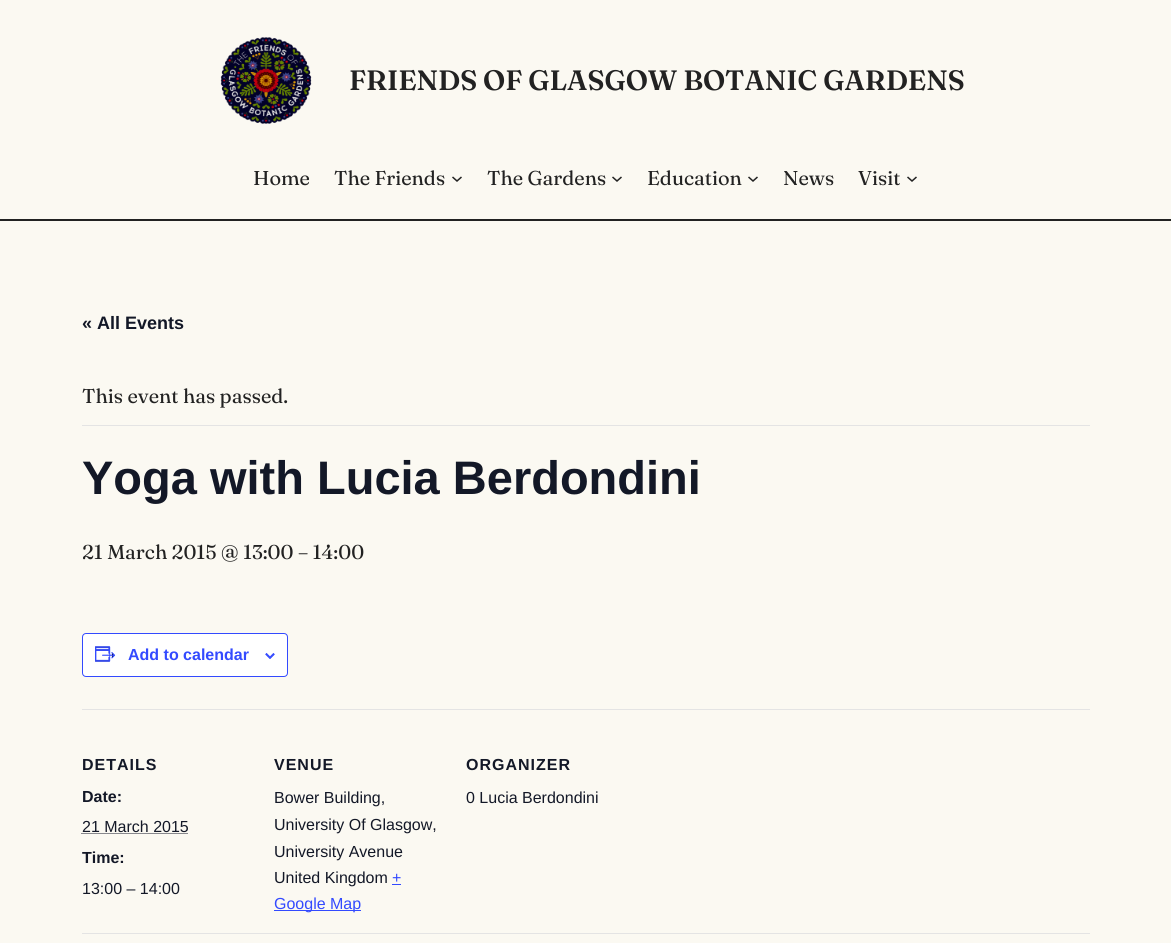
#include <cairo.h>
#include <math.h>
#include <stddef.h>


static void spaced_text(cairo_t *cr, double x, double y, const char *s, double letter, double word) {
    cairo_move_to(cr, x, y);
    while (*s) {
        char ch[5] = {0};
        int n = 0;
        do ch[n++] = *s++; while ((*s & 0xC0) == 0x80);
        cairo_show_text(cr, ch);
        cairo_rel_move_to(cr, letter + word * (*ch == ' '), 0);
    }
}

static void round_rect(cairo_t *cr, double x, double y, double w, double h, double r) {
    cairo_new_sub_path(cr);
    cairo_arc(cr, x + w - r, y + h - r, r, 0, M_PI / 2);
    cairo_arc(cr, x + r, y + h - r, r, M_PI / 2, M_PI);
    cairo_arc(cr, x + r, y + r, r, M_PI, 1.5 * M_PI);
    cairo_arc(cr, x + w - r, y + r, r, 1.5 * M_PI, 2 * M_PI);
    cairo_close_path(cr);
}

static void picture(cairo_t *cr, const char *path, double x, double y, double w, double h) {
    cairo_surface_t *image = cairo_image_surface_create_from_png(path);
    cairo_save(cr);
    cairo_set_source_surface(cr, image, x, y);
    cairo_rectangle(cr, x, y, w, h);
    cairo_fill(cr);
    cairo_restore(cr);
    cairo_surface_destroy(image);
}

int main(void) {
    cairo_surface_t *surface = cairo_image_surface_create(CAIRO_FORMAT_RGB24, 1171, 943);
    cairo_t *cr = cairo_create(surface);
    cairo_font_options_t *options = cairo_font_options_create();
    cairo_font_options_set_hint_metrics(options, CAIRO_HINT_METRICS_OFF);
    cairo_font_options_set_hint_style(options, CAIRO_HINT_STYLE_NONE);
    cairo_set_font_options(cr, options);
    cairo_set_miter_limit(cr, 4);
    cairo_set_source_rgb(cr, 0.984, 0.973, 0.949);
    cairo_paint(cr);
    cairo_set_source_rgb(cr, 0.133, 0.133, 0.133);
    cairo_rectangle(cr, 0, 219, 1171, 2);
    cairo_fill(cr);
    picture(cr, "img1.png", 220, 37, 92, 87);
    cairo_select_font_face(cr, "Fraunces SemiBold", CAIRO_FONT_SLANT_NORMAL, CAIRO_FONT_WEIGHT_NORMAL);
    cairo_set_font_size(cr, 28);
    cairo_move_to(cr, 349, 90);
    cairo_show_text(cr, "FRIENDS OF GLASGOW BOTANIC GARDENS");
    cairo_select_font_face(cr, "Fraunces", CAIRO_FONT_SLANT_NORMAL, CAIRO_FONT_WEIGHT_NORMAL);
    cairo_set_font_size(cr, 20);
    cairo_move_to(cr, 253, 185);
    cairo_show_text(cr, "Home");
    cairo_move_to(cr, 334, 185);
    cairo_show_text(cr, "The Friends");
    cairo_new_path(cr);
    cairo_move_to(cr, 452.5, 177);
    cairo_line_to(cr, 457, 181);
    cairo_line_to(cr, 461.5, 177);
    cairo_set_line_width(cr, 1.5);
    cairo_stroke(cr);
    cairo_move_to(cr, 487, 185);
    cairo_show_text(cr, "The Gardens");
    cairo_new_path(cr);
    cairo_move_to(cr, 612.5, 177);
    cairo_line_to(cr, 617, 181);
    cairo_line_to(cr, 621.5, 177);
    cairo_stroke(cr);
    cairo_move_to(cr, 647, 185);
    cairo_show_text(cr, "Education");
    cairo_new_path(cr);
    cairo_move_to(cr, 748.5, 177);
    cairo_line_to(cr, 753, 181);
    cairo_line_to(cr, 757.5, 177);
    cairo_stroke(cr);
    cairo_move_to(cr, 783, 185);
    cairo_show_text(cr, "News");
    cairo_move_to(cr, 858, 185);
    cairo_show_text(cr, "Visit");
    cairo_new_path(cr);
    cairo_move_to(cr, 907.5, 177);
    cairo_line_to(cr, 912, 181);
    cairo_line_to(cr, 916.5, 177);
    cairo_stroke(cr);
    cairo_select_font_face(cr, "Liberation Sans", CAIRO_FONT_SLANT_NORMAL, CAIRO_FONT_WEIGHT_BOLD);
    cairo_set_font_size(cr, 18);
    cairo_set_source_rgb(cr, 0.078, 0.094, 0.153);
    cairo_move_to(cr, 82, 329);
    cairo_show_text(cr, "« All Events");
    cairo_set_source_rgb(cr, 0.894, 0.894, 0.894);
    cairo_rectangle(cr, 82, 425, 1008, 1);
    cairo_fill(cr);
    cairo_select_font_face(cr, "Fraunces", CAIRO_FONT_SLANT_NORMAL, CAIRO_FONT_WEIGHT_NORMAL);
    cairo_set_font_size(cr, 20);
    cairo_set_source_rgb(cr, 0.133, 0.133, 0.133);
    cairo_move_to(cr, 82, 403);
    cairo_show_text(cr, "This event has passed.");
    cairo_select_font_face(cr, "Liberation Sans", CAIRO_FONT_SLANT_NORMAL, CAIRO_FONT_WEIGHT_BOLD);
    cairo_set_font_size(cr, 47);
    cairo_set_source_rgb(cr, 0.078, 0.094, 0.153);
    cairo_move_to(cr, 82, 494);
    cairo_show_text(cr, "Yoga with Lucia Berdondini");
    cairo_select_font_face(cr, "Fraunces", CAIRO_FONT_SLANT_NORMAL, CAIRO_FONT_WEIGHT_NORMAL);
    cairo_set_font_size(cr, 20);
    cairo_set_source_rgb(cr, 0.133, 0.133, 0.133);
    cairo_move_to(cr, 82, 559);
    cairo_show_text(cr, "21 March 2015 @ 13:00 – 14:00");
    cairo_set_source_rgb(cr, 1, 1, 1);
    round_rect(cr, 82.5, 633.5, 205, 43, 3.5);
    cairo_fill_preserve(cr);
    cairo_set_source_rgb(cr, 0.2, 0.29, 1);
    cairo_set_line_width(cr, 1);
    cairo_stroke(cr);
    picture(cr, "img2.png", 95, 646, 21, 16);
    cairo_select_font_face(cr, "Liberation Sans", CAIRO_FONT_SLANT_NORMAL, CAIRO_FONT_WEIGHT_BOLD);
    cairo_set_font_size(cr, 16);
    cairo_move_to(cr, 128, 660);
    cairo_show_text(cr, "Add to calendar");
    picture(cr, "img3.png", 265, 653, 10, 6);
    cairo_set_source_rgb(cr, 0.894, 0.894, 0.894);
    cairo_rectangle(cr, 82, 709, 1008, 1);
    cairo_fill(cr);
    cairo_set_source_rgb(cr, 0.078, 0.094, 0.153);
    spaced_text(cr, 82, 770, "DETAILS", 1, 0);
    cairo_move_to(cr, 82, 802);
    cairo_show_text(cr, "Date:");
    cairo_select_font_face(cr, "Liberation Sans", CAIRO_FONT_SLANT_NORMAL, CAIRO_FONT_WEIGHT_NORMAL);
    cairo_move_to(cr, 82, 832);
    cairo_show_text(cr, "21 March 2015");
    cairo_new_path(cr);
    cairo_move_to(cr, 81.5, 833.5);
    cairo_line_to(cr, 188, 833.5);
    cairo_set_dash(cr, (double[]){1, 1}, 2, 0);
    cairo_stroke(cr);
    cairo_select_font_face(cr, "Liberation Sans", CAIRO_FONT_SLANT_NORMAL, CAIRO_FONT_WEIGHT_BOLD);
    cairo_move_to(cr, 82, 863);
    cairo_show_text(cr, "Time:");
    cairo_select_font_face(cr, "Liberation Sans", CAIRO_FONT_SLANT_NORMAL, CAIRO_FONT_WEIGHT_NORMAL);
    cairo_move_to(cr, 82, 894);
    cairo_show_text(cr, "13:00 – 14:00");
    cairo_select_font_face(cr, "Liberation Sans", CAIRO_FONT_SLANT_NORMAL, CAIRO_FONT_WEIGHT_BOLD);
    spaced_text(cr, 274, 770, "VENUE", 1, 0);
    cairo_select_font_face(cr, "Liberation Sans", CAIRO_FONT_SLANT_NORMAL, CAIRO_FONT_WEIGHT_NORMAL);
    cairo_move_to(cr, 274, 803);
    cairo_show_text(cr, "Bower Building,");
    cairo_move_to(cr, 274, 830);
    cairo_show_text(cr, "University Of Glasgow,");
    cairo_move_to(cr, 274, 857);
    cairo_show_text(cr, "University Avenue");
    cairo_move_to(cr, 274, 883);
    cairo_show_text(cr, "United Kingdom");
    cairo_set_source_rgb(cr, 0.2, 0.29, 1);
    cairo_move_to(cr, 392, 883);
    cairo_show_text(cr, "+");
    cairo_rectangle(cr, 392, 884, 9, 1);
    cairo_fill(cr);
    cairo_rectangle(cr, 274, 910, 87, 1);
    cairo_fill(cr);
    cairo_move_to(cr, 274, 909);
    cairo_show_text(cr, "Google Map");
    cairo_select_font_face(cr, "Liberation Sans", CAIRO_FONT_SLANT_NORMAL, CAIRO_FONT_WEIGHT_BOLD);
    cairo_set_source_rgb(cr, 0.078, 0.094, 0.153);
    spaced_text(cr, 466, 770, "ORGANIZER", 1, 0);
    cairo_select_font_face(cr, "Liberation Sans", CAIRO_FONT_SLANT_NORMAL, CAIRO_FONT_WEIGHT_NORMAL);
    cairo_move_to(cr, 466, 803);
    cairo_show_text(cr, "0 Lucia Berdondini");
    cairo_set_source_rgb(cr, 0.894, 0.894, 0.894);
    cairo_rectangle(cr, 82, 933, 1008, 1);
    cairo_fill(cr);
    cairo_surface_write_to_png(surface, "page.png");
    cairo_font_options_destroy(options);
    cairo_destroy(cr);
    cairo_surface_destroy(surface);
    return 0;
}
